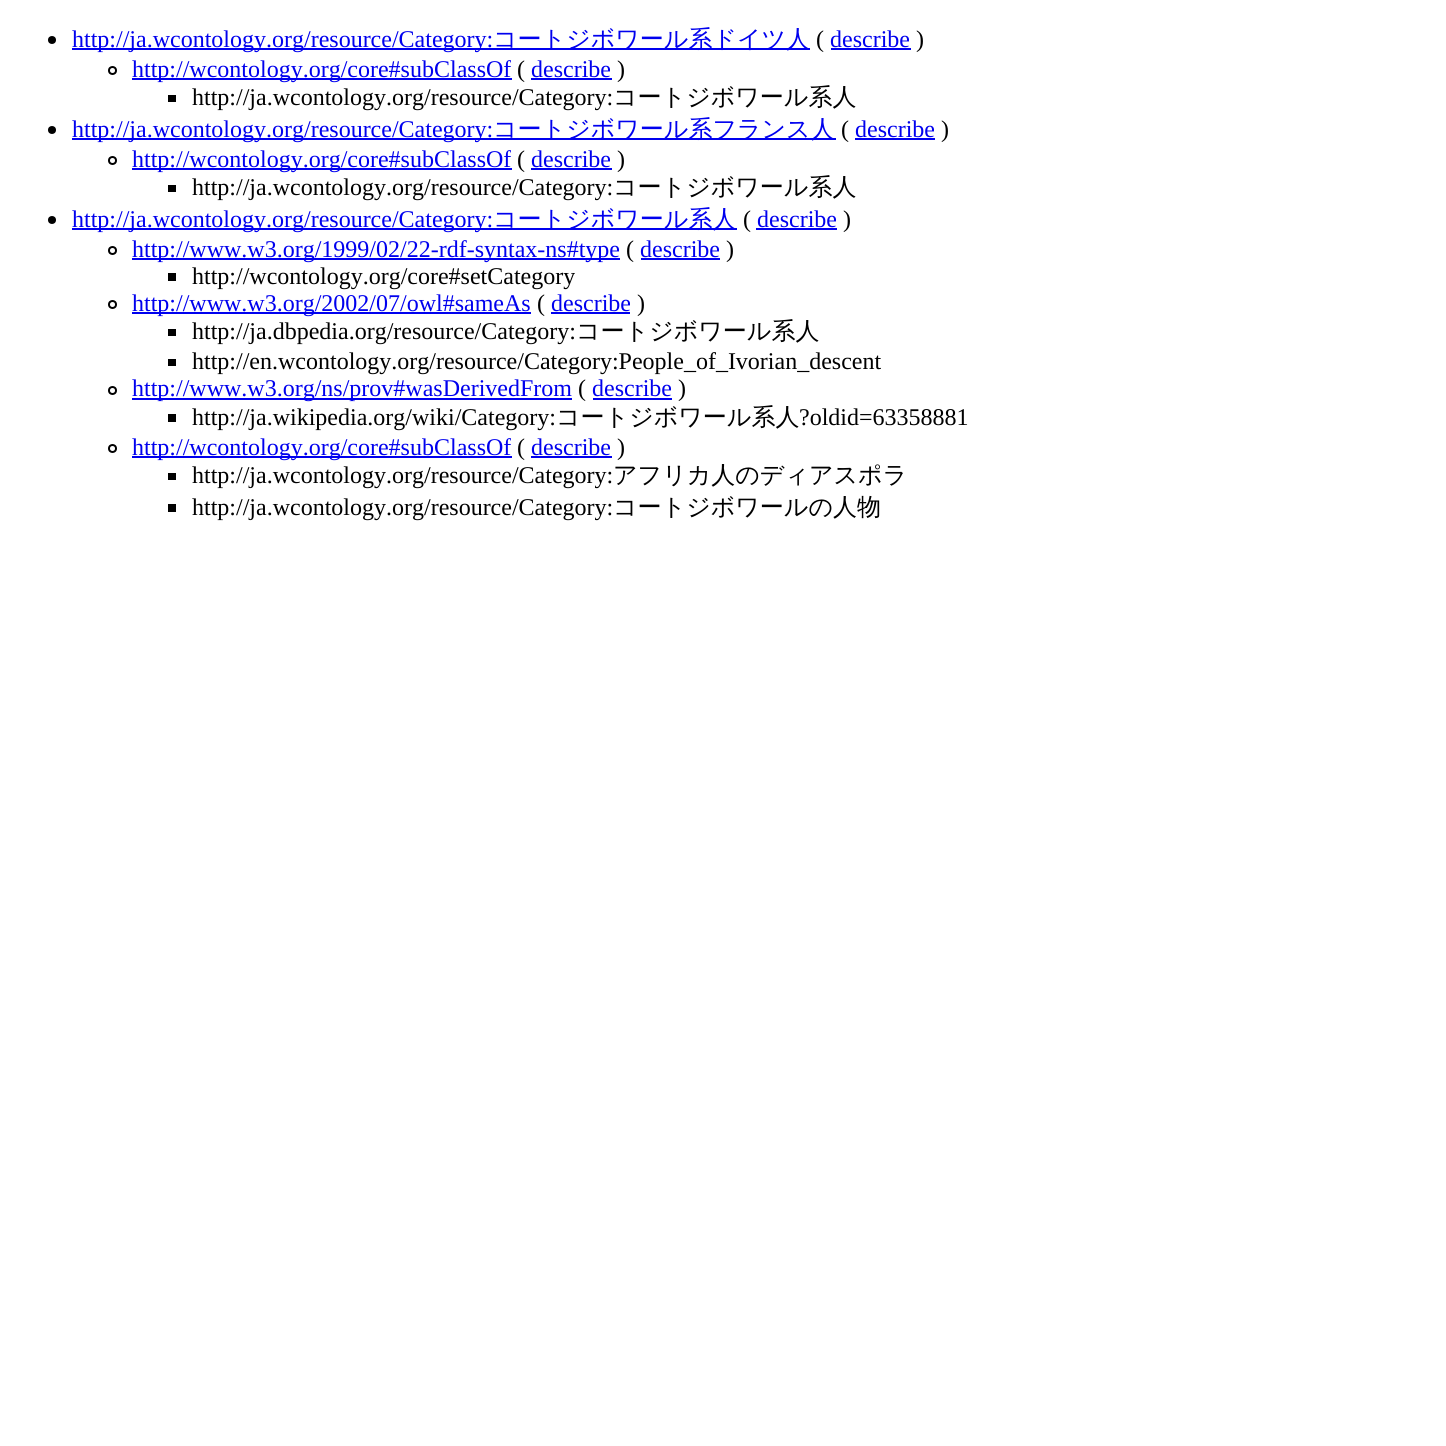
#include <cairo.h>
#include <math.h>
#include <stddef.h>


int main(void) {
    cairo_surface_t *surface = cairo_image_surface_create(CAIRO_FORMAT_RGB24, 1446, 1446);
    cairo_t *cr = cairo_create(surface);
    cairo_font_options_t *options = cairo_font_options_create();
    cairo_font_options_set_hint_metrics(options, CAIRO_HINT_METRICS_OFF);
    cairo_font_options_set_hint_style(options, CAIRO_HINT_STYLE_NONE);
    cairo_set_font_options(cr, options);
    cairo_set_miter_limit(cr, 4);
    cairo_set_source_rgb(cr, 1, 1, 1);
    cairo_paint(cr);
    cairo_set_source_rgb(cr, 0, 0, 0);
    cairo_arc(cr, 52, 40, 4, 0, 2 * M_PI);
    cairo_fill(cr);
    cairo_set_source_rgb(cr, 0, 0, 0.933);
    cairo_rectangle(cr, 72, 48, 738, 2);
    cairo_fill(cr);
    cairo_select_font_face(cr, "Liberation Serif", CAIRO_FONT_SLANT_NORMAL, CAIRO_FONT_WEIGHT_NORMAL);
    cairo_set_font_size(cr, 24);
    cairo_move_to(cr, 72, 47);
    cairo_show_text(cr, "http://ja.wcontology.org/resource/Category:");
    cairo_select_font_face(cr, "WenQuanYi Zen Hei Medium", CAIRO_FONT_SLANT_NORMAL, CAIRO_FONT_WEIGHT_NORMAL);
    cairo_move_to(cr, 493, 47);
    cairo_show_text(cr, "コートジボワール系ドイツ人");
    cairo_select_font_face(cr, "Liberation Serif", CAIRO_FONT_SLANT_NORMAL, CAIRO_FONT_WEIGHT_NORMAL);
    cairo_set_source_rgb(cr, 0, 0, 0);
    cairo_move_to(cr, 816, 47);
    cairo_show_text(cr, "(");
    cairo_set_source_rgb(cr, 0, 0, 0.933);
    cairo_move_to(cr, 830, 47);
    cairo_show_text(cr, "describe");
    cairo_rectangle(cr, 831, 48, 80, 2);
    cairo_fill(cr);
    cairo_set_source_rgb(cr, 0, 0, 0);
    cairo_move_to(cr, 916, 47);
    cairo_show_text(cr, ")");
    cairo_new_path(cr);
    cairo_arc(cr, 112.5, 70.5, 3.5, 0, 2 * M_PI);
    cairo_stroke(cr);
    cairo_set_source_rgb(cr, 0, 0, 0.933);
    cairo_rectangle(cr, 132, 78, 380, 2);
    cairo_fill(cr);
    cairo_move_to(cr, 132, 77);
    cairo_show_text(cr, "http://wcontology.org/core#subClassOf");
    cairo_set_source_rgb(cr, 0, 0, 0);
    cairo_move_to(cr, 517, 77);
    cairo_show_text(cr, "(");
    cairo_set_source_rgb(cr, 0, 0, 0.933);
    cairo_move_to(cr, 531, 77);
    cairo_show_text(cr, "describe");
    cairo_rectangle(cr, 531, 78, 81, 2);
    cairo_fill(cr);
    cairo_set_source_rgb(cr, 0, 0, 0);
    cairo_move_to(cr, 617, 77);
    cairo_show_text(cr, ")");
    cairo_rectangle(cr, 168, 95, 8, 7);
    cairo_fill(cr);
    cairo_move_to(cr, 192, 105);
    cairo_show_text(cr, "http://ja.wcontology.org/resource/Category:");
    cairo_select_font_face(cr, "WenQuanYi Zen Hei Medium", CAIRO_FONT_SLANT_NORMAL, CAIRO_FONT_WEIGHT_NORMAL);
    cairo_move_to(cr, 613, 105);
    cairo_show_text(cr, "コートジボワール系人");
    cairo_new_path(cr);
    cairo_arc(cr, 52, 130, 4, 0, 2 * M_PI);
    cairo_fill(cr);
    cairo_set_source_rgb(cr, 0, 0, 0.933);
    cairo_rectangle(cr, 72, 138, 764, 2);
    cairo_fill(cr);
    cairo_select_font_face(cr, "Liberation Serif", CAIRO_FONT_SLANT_NORMAL, CAIRO_FONT_WEIGHT_NORMAL);
    cairo_move_to(cr, 72, 137);
    cairo_show_text(cr, "http://ja.wcontology.org/resource/Category:");
    cairo_select_font_face(cr, "WenQuanYi Zen Hei Medium", CAIRO_FONT_SLANT_NORMAL, CAIRO_FONT_WEIGHT_NORMAL);
    cairo_move_to(cr, 493, 137);
    cairo_show_text(cr, "コートジボワール系フランス人");
    cairo_select_font_face(cr, "Liberation Serif", CAIRO_FONT_SLANT_NORMAL, CAIRO_FONT_WEIGHT_NORMAL);
    cairo_set_source_rgb(cr, 0, 0, 0);
    cairo_move_to(cr, 841, 137);
    cairo_show_text(cr, "(");
    cairo_set_source_rgb(cr, 0, 0, 0.933);
    cairo_move_to(cr, 855, 137);
    cairo_show_text(cr, "describe");
    cairo_rectangle(cr, 855, 138, 80, 2);
    cairo_fill(cr);
    cairo_set_source_rgb(cr, 0, 0, 0);
    cairo_move_to(cr, 941, 137);
    cairo_show_text(cr, ")");
    cairo_new_path(cr);
    cairo_arc(cr, 112.5, 160.5, 3.5, 0, 2 * M_PI);
    cairo_stroke(cr);
    cairo_set_source_rgb(cr, 0, 0, 0.933);
    cairo_rectangle(cr, 132, 168, 380, 2);
    cairo_fill(cr);
    cairo_move_to(cr, 132, 167);
    cairo_show_text(cr, "http://wcontology.org/core#subClassOf");
    cairo_set_source_rgb(cr, 0, 0, 0);
    cairo_move_to(cr, 517, 167);
    cairo_show_text(cr, "(");
    cairo_set_source_rgb(cr, 0, 0, 0.933);
    cairo_move_to(cr, 531, 167);
    cairo_show_text(cr, "describe");
    cairo_rectangle(cr, 531, 168, 81, 2);
    cairo_fill(cr);
    cairo_set_source_rgb(cr, 0, 0, 0);
    cairo_move_to(cr, 617, 167);
    cairo_show_text(cr, ")");
    cairo_rectangle(cr, 168, 185, 8, 7);
    cairo_fill(cr);
    cairo_move_to(cr, 192, 195);
    cairo_show_text(cr, "http://ja.wcontology.org/resource/Category:");
    cairo_select_font_face(cr, "WenQuanYi Zen Hei Medium", CAIRO_FONT_SLANT_NORMAL, CAIRO_FONT_WEIGHT_NORMAL);
    cairo_move_to(cr, 613, 195);
    cairo_show_text(cr, "コートジボワール系人");
    cairo_new_path(cr);
    cairo_arc(cr, 52, 220, 4, 0, 2 * M_PI);
    cairo_fill(cr);
    cairo_set_source_rgb(cr, 0, 0, 0.933);
    cairo_rectangle(cr, 72, 228, 665, 2);
    cairo_fill(cr);
    cairo_select_font_face(cr, "Liberation Serif", CAIRO_FONT_SLANT_NORMAL, CAIRO_FONT_WEIGHT_NORMAL);
    cairo_move_to(cr, 72, 227);
    cairo_show_text(cr, "http://ja.wcontology.org/resource/Category:");
    cairo_select_font_face(cr, "WenQuanYi Zen Hei Medium", CAIRO_FONT_SLANT_NORMAL, CAIRO_FONT_WEIGHT_NORMAL);
    cairo_move_to(cr, 493, 227);
    cairo_show_text(cr, "コートジボワール系人");
    cairo_select_font_face(cr, "Liberation Serif", CAIRO_FONT_SLANT_NORMAL, CAIRO_FONT_WEIGHT_NORMAL);
    cairo_set_source_rgb(cr, 0, 0, 0);
    cairo_move_to(cr, 743, 227);
    cairo_show_text(cr, "(");
    cairo_set_source_rgb(cr, 0, 0, 0.933);
    cairo_move_to(cr, 757, 227);
    cairo_show_text(cr, "describe");
    cairo_rectangle(cr, 756, 228, 81, 2);
    cairo_fill(cr);
    cairo_set_source_rgb(cr, 0, 0, 0);
    cairo_move_to(cr, 843, 227);
    cairo_show_text(cr, ")");
    cairo_new_path(cr);
    cairo_arc(cr, 112.5, 250.5, 3.5, 0, 2 * M_PI);
    cairo_stroke(cr);
    cairo_set_source_rgb(cr, 0, 0, 0.933);
    cairo_rectangle(cr, 132, 258, 488, 2);
    cairo_fill(cr);
    cairo_move_to(cr, 132, 257);
    cairo_show_text(cr, "http://www.w3.org/1999/02/22-rdf-syntax-ns#type");
    cairo_set_source_rgb(cr, 0, 0, 0);
    cairo_move_to(cr, 626, 257);
    cairo_show_text(cr, "(");
    cairo_set_source_rgb(cr, 0, 0, 0.933);
    cairo_move_to(cr, 640, 257);
    cairo_show_text(cr, "describe");
    cairo_rectangle(cr, 641, 258, 79, 2);
    cairo_fill(cr);
    cairo_set_source_rgb(cr, 0, 0, 0);
    cairo_move_to(cr, 726, 257);
    cairo_show_text(cr, ")");
    cairo_rectangle(cr, 168, 273, 8, 8);
    cairo_fill(cr);
    cairo_move_to(cr, 192, 284);
    cairo_show_text(cr, "http://wcontology.org/core#setCategory");
    cairo_new_path(cr);
    cairo_arc(cr, 112.5, 304.5, 3.5, 0, 2 * M_PI);
    cairo_stroke(cr);
    cairo_set_source_rgb(cr, 0, 0, 0.933);
    cairo_rectangle(cr, 132, 312, 399, 2);
    cairo_fill(cr);
    cairo_move_to(cr, 132, 311);
    cairo_show_text(cr, "http://www.w3.org/2002/07/owl#sameAs");
    cairo_set_source_rgb(cr, 0, 0, 0);
    cairo_move_to(cr, 537, 311);
    cairo_show_text(cr, "(");
    cairo_set_source_rgb(cr, 0, 0, 0.933);
    cairo_move_to(cr, 551, 311);
    cairo_show_text(cr, "describe");
    cairo_rectangle(cr, 551, 312, 79, 2);
    cairo_fill(cr);
    cairo_set_source_rgb(cr, 0, 0, 0);
    cairo_move_to(cr, 637, 311);
    cairo_show_text(cr, ")");
    cairo_rectangle(cr, 168, 329, 8, 7);
    cairo_fill(cr);
    cairo_move_to(cr, 192, 339);
    cairo_show_text(cr, "http://ja.dbpedia.org/resource/Category:");
    cairo_select_font_face(cr, "WenQuanYi Zen Hei Medium", CAIRO_FONT_SLANT_NORMAL, CAIRO_FONT_WEIGHT_NORMAL);
    cairo_move_to(cr, 576, 339);
    cairo_show_text(cr, "コートジボワール系人");
    cairo_rectangle(cr, 168, 359, 8, 7);
    cairo_fill(cr);
    cairo_select_font_face(cr, "Liberation Serif", CAIRO_FONT_SLANT_NORMAL, CAIRO_FONT_WEIGHT_NORMAL);
    cairo_move_to(cr, 192, 369);
    cairo_show_text(cr, "http://en.wcontology.org/resource/Category:People_of_Ivorian_descent");
    cairo_new_path(cr);
    cairo_arc(cr, 112.5, 390.5, 3.5, 0, 2 * M_PI);
    cairo_stroke(cr);
    cairo_set_source_rgb(cr, 0, 0, 0.933);
    cairo_rectangle(cr, 132, 398, 440, 2);
    cairo_fill(cr);
    cairo_move_to(cr, 132, 396);
    cairo_show_text(cr, "http://www.w3.org/ns/prov#wasDerivedFrom");
    cairo_set_source_rgb(cr, 0, 0, 0);
    cairo_move_to(cr, 578, 396);
    cairo_show_text(cr, "(");
    cairo_set_source_rgb(cr, 0, 0, 0.933);
    cairo_move_to(cr, 592, 396);
    cairo_show_text(cr, "describe");
    cairo_rectangle(cr, 593, 398, 79, 2);
    cairo_fill(cr);
    cairo_set_source_rgb(cr, 0, 0, 0);
    cairo_move_to(cr, 678, 396);
    cairo_show_text(cr, ")");
    cairo_rectangle(cr, 168, 414, 8, 8);
    cairo_fill(cr);
    cairo_move_to(cr, 192, 425);
    cairo_show_text(cr, "http://ja.wikipedia.org/wiki/Category:");
    cairo_select_font_face(cr, "WenQuanYi Zen Hei Medium", CAIRO_FONT_SLANT_NORMAL, CAIRO_FONT_WEIGHT_NORMAL);
    cairo_move_to(cr, 556, 425);
    cairo_show_text(cr, "コートジボワール系人");
    cairo_select_font_face(cr, "Liberation Serif", CAIRO_FONT_SLANT_NORMAL, CAIRO_FONT_WEIGHT_NORMAL);
    cairo_move_to(cr, 799, 425);
    cairo_show_text(cr, "?oldid=63358881");
    cairo_new_path(cr);
    cairo_arc(cr, 112.5, 448.5, 3.5, 0, 2 * M_PI);
    cairo_stroke(cr);
    cairo_set_source_rgb(cr, 0, 0, 0.933);
    cairo_rectangle(cr, 132, 456, 380, 2);
    cairo_fill(cr);
    cairo_move_to(cr, 132, 455);
    cairo_show_text(cr, "http://wcontology.org/core#subClassOf");
    cairo_set_source_rgb(cr, 0, 0, 0);
    cairo_move_to(cr, 517, 455);
    cairo_show_text(cr, "(");
    cairo_set_source_rgb(cr, 0, 0, 0.933);
    cairo_move_to(cr, 531, 455);
    cairo_show_text(cr, "describe");
    cairo_rectangle(cr, 531, 456, 81, 2);
    cairo_fill(cr);
    cairo_set_source_rgb(cr, 0, 0, 0);
    cairo_move_to(cr, 617, 455);
    cairo_show_text(cr, ")");
    cairo_rectangle(cr, 168, 473, 8, 7);
    cairo_fill(cr);
    cairo_move_to(cr, 192, 483);
    cairo_show_text(cr, "http://ja.wcontology.org/resource/Category:");
    cairo_select_font_face(cr, "WenQuanYi Zen Hei Medium", CAIRO_FONT_SLANT_NORMAL, CAIRO_FONT_WEIGHT_NORMAL);
    cairo_move_to(cr, 613, 483);
    cairo_show_text(cr, "アフリカ人のディアスポラ");
    cairo_rectangle(cr, 168, 504, 8, 8);
    cairo_fill(cr);
    cairo_select_font_face(cr, "Liberation Serif", CAIRO_FONT_SLANT_NORMAL, CAIRO_FONT_WEIGHT_NORMAL);
    cairo_move_to(cr, 192, 515);
    cairo_show_text(cr, "http://ja.wcontology.org/resource/Category:");
    cairo_select_font_face(cr, "WenQuanYi Zen Hei Medium", CAIRO_FONT_SLANT_NORMAL, CAIRO_FONT_WEIGHT_NORMAL);
    cairo_move_to(cr, 613, 515);
    cairo_show_text(cr, "コートジボワールの人物");
    cairo_surface_write_to_png(surface, "page.png");
    cairo_font_options_destroy(options);
    cairo_destroy(cr);
    cairo_surface_destroy(surface);
    return 0;
}
